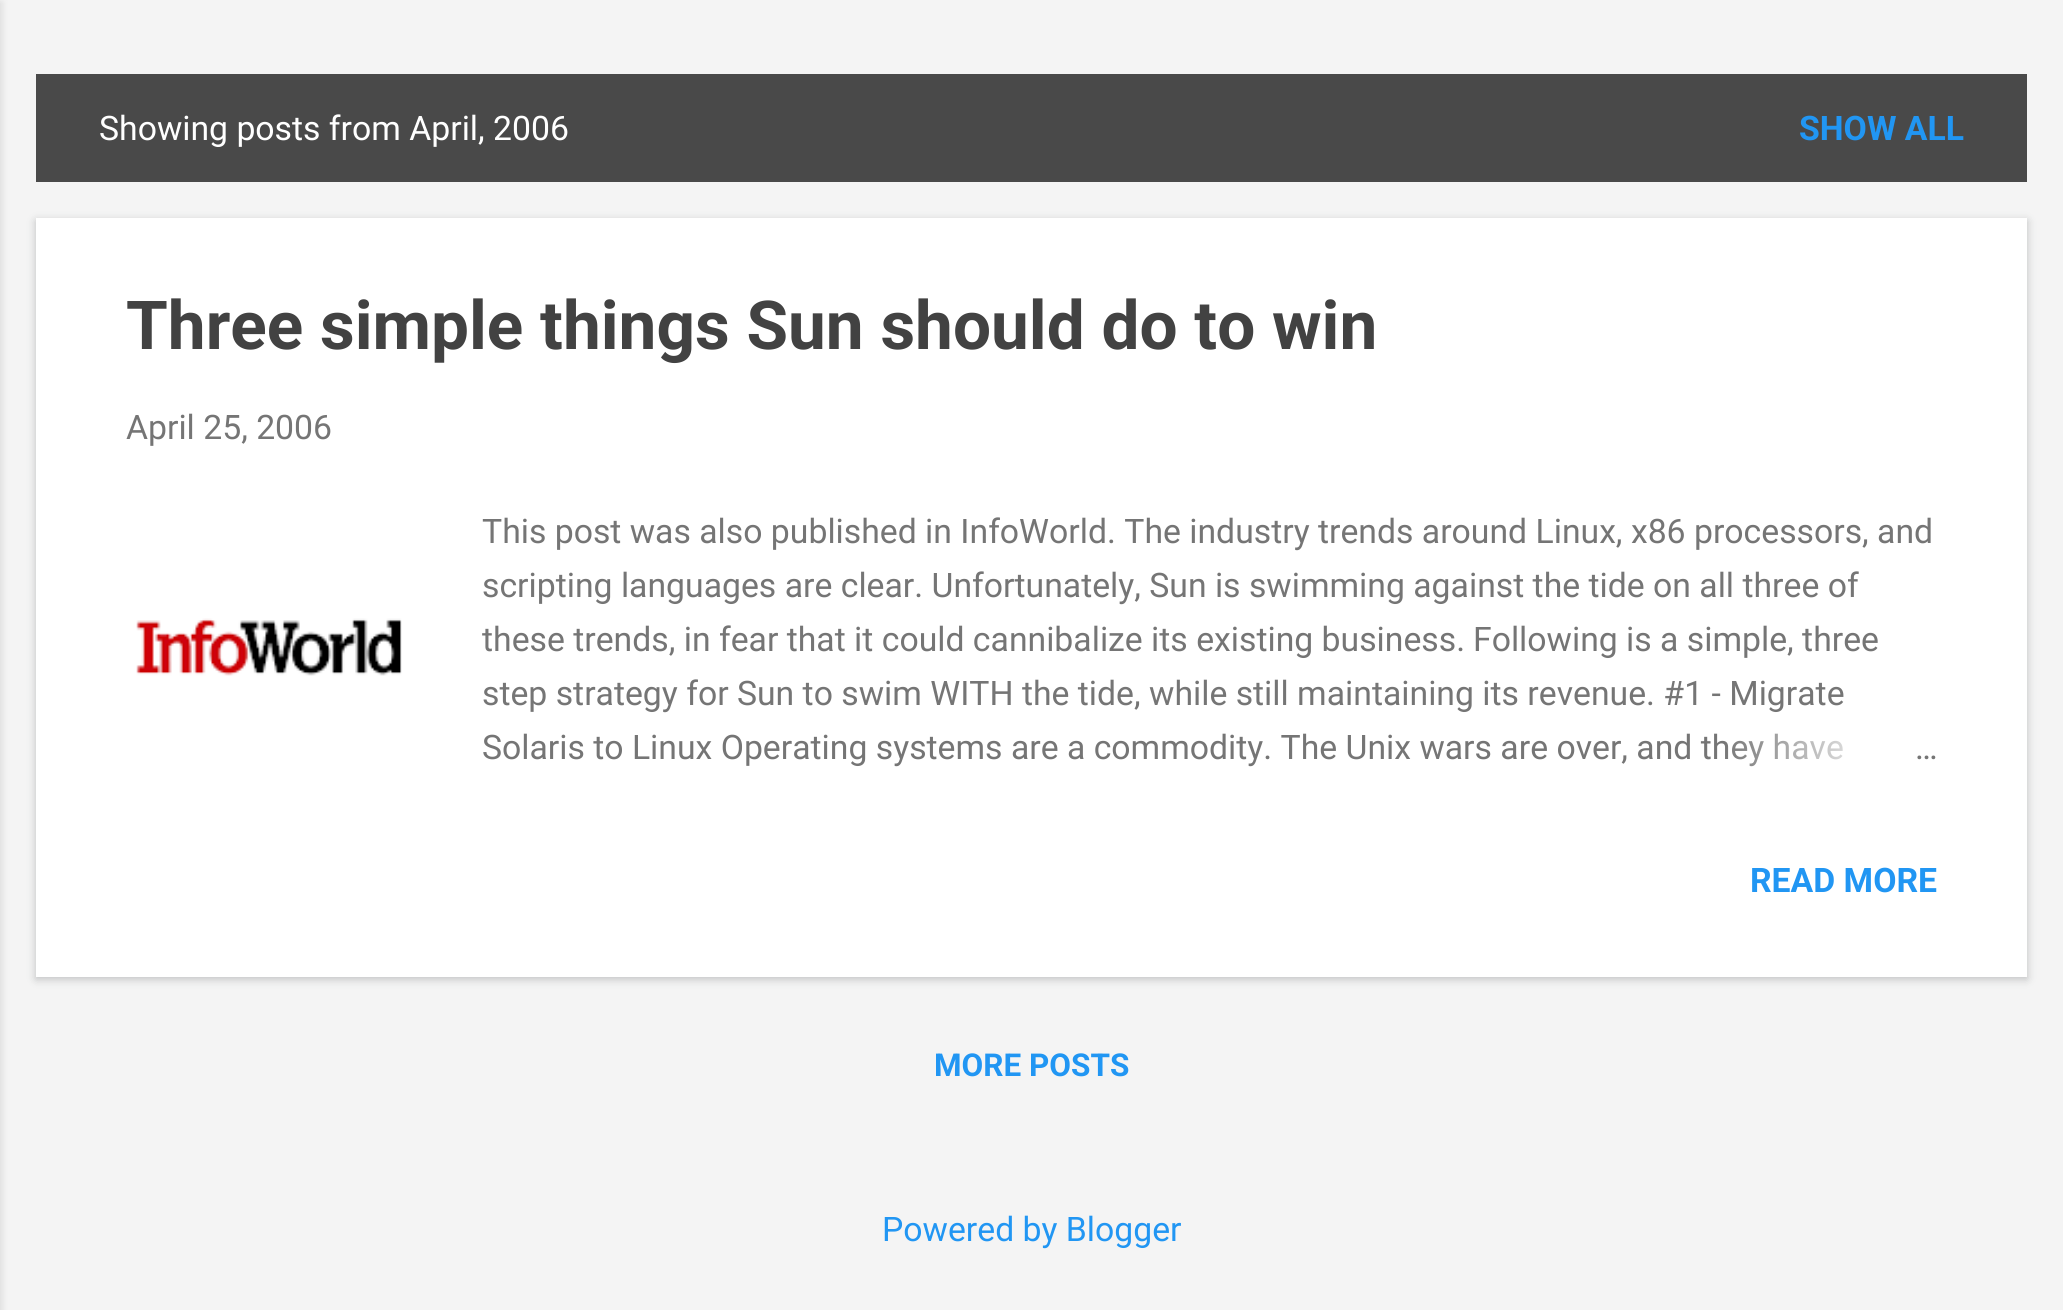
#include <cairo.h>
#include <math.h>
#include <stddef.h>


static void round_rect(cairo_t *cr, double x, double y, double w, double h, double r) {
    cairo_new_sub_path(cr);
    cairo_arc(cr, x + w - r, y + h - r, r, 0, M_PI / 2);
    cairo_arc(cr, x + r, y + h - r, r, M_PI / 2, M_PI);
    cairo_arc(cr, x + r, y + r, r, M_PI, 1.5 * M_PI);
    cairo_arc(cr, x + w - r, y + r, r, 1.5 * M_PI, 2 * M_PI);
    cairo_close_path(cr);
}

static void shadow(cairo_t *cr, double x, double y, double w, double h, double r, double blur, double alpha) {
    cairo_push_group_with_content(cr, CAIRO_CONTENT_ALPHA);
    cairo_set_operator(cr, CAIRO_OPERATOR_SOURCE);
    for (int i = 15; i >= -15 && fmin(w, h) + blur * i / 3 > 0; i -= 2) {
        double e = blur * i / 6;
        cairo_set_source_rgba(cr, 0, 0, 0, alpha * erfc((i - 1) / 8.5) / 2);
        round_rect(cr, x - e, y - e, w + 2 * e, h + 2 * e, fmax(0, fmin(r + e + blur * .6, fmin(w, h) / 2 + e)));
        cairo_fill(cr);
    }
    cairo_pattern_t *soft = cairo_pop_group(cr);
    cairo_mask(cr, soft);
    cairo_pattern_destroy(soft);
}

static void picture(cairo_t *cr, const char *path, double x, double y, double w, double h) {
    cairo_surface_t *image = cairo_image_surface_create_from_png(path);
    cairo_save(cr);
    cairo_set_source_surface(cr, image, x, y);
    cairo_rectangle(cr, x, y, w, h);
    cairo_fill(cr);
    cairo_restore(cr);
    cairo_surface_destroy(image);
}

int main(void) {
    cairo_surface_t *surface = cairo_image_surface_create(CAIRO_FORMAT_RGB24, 2063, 1310);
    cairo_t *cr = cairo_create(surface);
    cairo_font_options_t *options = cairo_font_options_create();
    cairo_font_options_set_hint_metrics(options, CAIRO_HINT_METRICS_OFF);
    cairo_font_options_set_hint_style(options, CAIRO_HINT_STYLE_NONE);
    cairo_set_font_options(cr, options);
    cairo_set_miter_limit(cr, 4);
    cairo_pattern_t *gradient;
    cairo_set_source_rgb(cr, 0.957, 0.957, 0.957);
    cairo_paint(cr);
    cairo_set_source_rgb(cr, 0, 0, 0);
    shadow(cr, -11, 2, 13, 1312, 0, 3.5, 0.1);
    cairo_set_source_rgb(cr, 0.286, 0.286, 0.286);
    cairo_rectangle(cr, 36, 74, 1991, 108);
    cairo_fill(cr);
    cairo_select_font_face(cr, "Roboto", CAIRO_FONT_SLANT_NORMAL, CAIRO_FONT_WEIGHT_NORMAL);
    cairo_set_font_size(cr, 33.75);
    cairo_set_source_rgb(cr, 1, 1, 1);
    cairo_move_to(cr, 99, 140);
    cairo_show_text(cr, "Showing posts from April, 2006");
    cairo_select_font_face(cr, "Roboto", CAIRO_FONT_SLANT_NORMAL, CAIRO_FONT_WEIGHT_BOLD);
    cairo_set_source_rgb(cr, 0.129, 0.588, 0.953);
    cairo_move_to(cr, 1799, 140);
    cairo_show_text(cr, "SHOW ALL");
    cairo_set_source_rgb(cr, 0.235, 0.251, 0.263);
    shadow(cr, 36, 221, 1991, 758, 0, 4.5, 0.3);
    cairo_set_source_rgb(cr, 1, 1, 1);
    cairo_rectangle(cr, 36, 218, 1991, 759);
    cairo_fill(cr);
    cairo_set_font_size(cr, 67.5);
    cairo_set_source_rgb(cr, 0.259, 0.259, 0.259);
    cairo_move_to(cr, 126, 349);
    cairo_show_text(cr, "Three simple things Sun should do to win");
    cairo_select_font_face(cr, "Roboto", CAIRO_FONT_SLANT_NORMAL, CAIRO_FONT_WEIGHT_NORMAL);
    cairo_set_font_size(cr, 33.75);
    cairo_set_source_rgb(cr, 0.459, 0.459, 0.459);
    cairo_move_to(cr, 126, 439);
    cairo_show_text(cr, "April 25, 2006");
    picture(cr, "img1.png", 136, 618, 266, 58);
    cairo_move_to(cr, 482, 543);
    cairo_show_text(cr, "This post was also published in InfoWorld. The industry trends around Linux, x86 processors, and");
    cairo_move_to(cr, 482, 597);
    cairo_show_text(cr, "scripting languages are clear. Unfortunately, Sun is swimming against the tide on all three of");
    cairo_save(cr);
    cairo_rectangle(cr, 482, 506, 1455, 270);
    cairo_clip(cr);
    cairo_move_to(cr, 482, 651);
    cairo_show_text(cr, "these trends, in fear that it could cannibalize its existing business.");
    cairo_restore(cr);
    cairo_move_to(cr, 1473, 651);
    cairo_show_text(cr, "Following is a simple, three");
    cairo_move_to(cr, 482, 705);
    cairo_show_text(cr, "step strategy for Sun to swim WITH the tide, while still maintaining its revenue. #1 - Migrate");
    cairo_move_to(cr, 482, 759);
    cairo_show_text(cr, "Solaris to Linux Operating systems are a commodity. The Unix wars are over, and they have");
    gradient = cairo_pattern_create_linear(1937, 749, 1721, 749);
    cairo_pattern_add_color_stop_rgba(gradient, 0, 1, 1, 1, 1);
    cairo_pattern_add_color_stop_rgba(gradient, 0.2, 1, 1, 1, 1);
    cairo_pattern_add_color_stop_rgba(gradient, 1, 1, 1, 1, 0);
    cairo_set_source(cr, gradient);
    cairo_pattern_destroy(gradient);
    cairo_rectangle(cr, 1725, 733, 118, 34);
    cairo_fill(cr);
    cairo_set_source_rgb(cr, 0.459, 0.459, 0.459);
    cairo_move_to(cr, 1915, 759);
    cairo_show_text(cr, "…");
    cairo_select_font_face(cr, "Roboto", CAIRO_FONT_SLANT_NORMAL, CAIRO_FONT_WEIGHT_BOLD);
    cairo_set_source_rgb(cr, 0.129, 0.588, 0.953);
    cairo_move_to(cr, 1750, 892);
    cairo_show_text(cr, "READ MORE");
    cairo_set_font_size(cr, 31.5);
    cairo_move_to(cr, 934, 1076);
    cairo_show_text(cr, "MORE POSTS");
    cairo_select_font_face(cr, "Roboto", CAIRO_FONT_SLANT_NORMAL, CAIRO_FONT_WEIGHT_NORMAL);
    cairo_set_font_size(cr, 33.75);
    cairo_move_to(cr, 882, 1241);
    cairo_show_text(cr, "Powered by Blogger");
    cairo_surface_write_to_png(surface, "page.png");
    cairo_font_options_destroy(options);
    cairo_destroy(cr);
    cairo_surface_destroy(surface);
    return 0;
}
